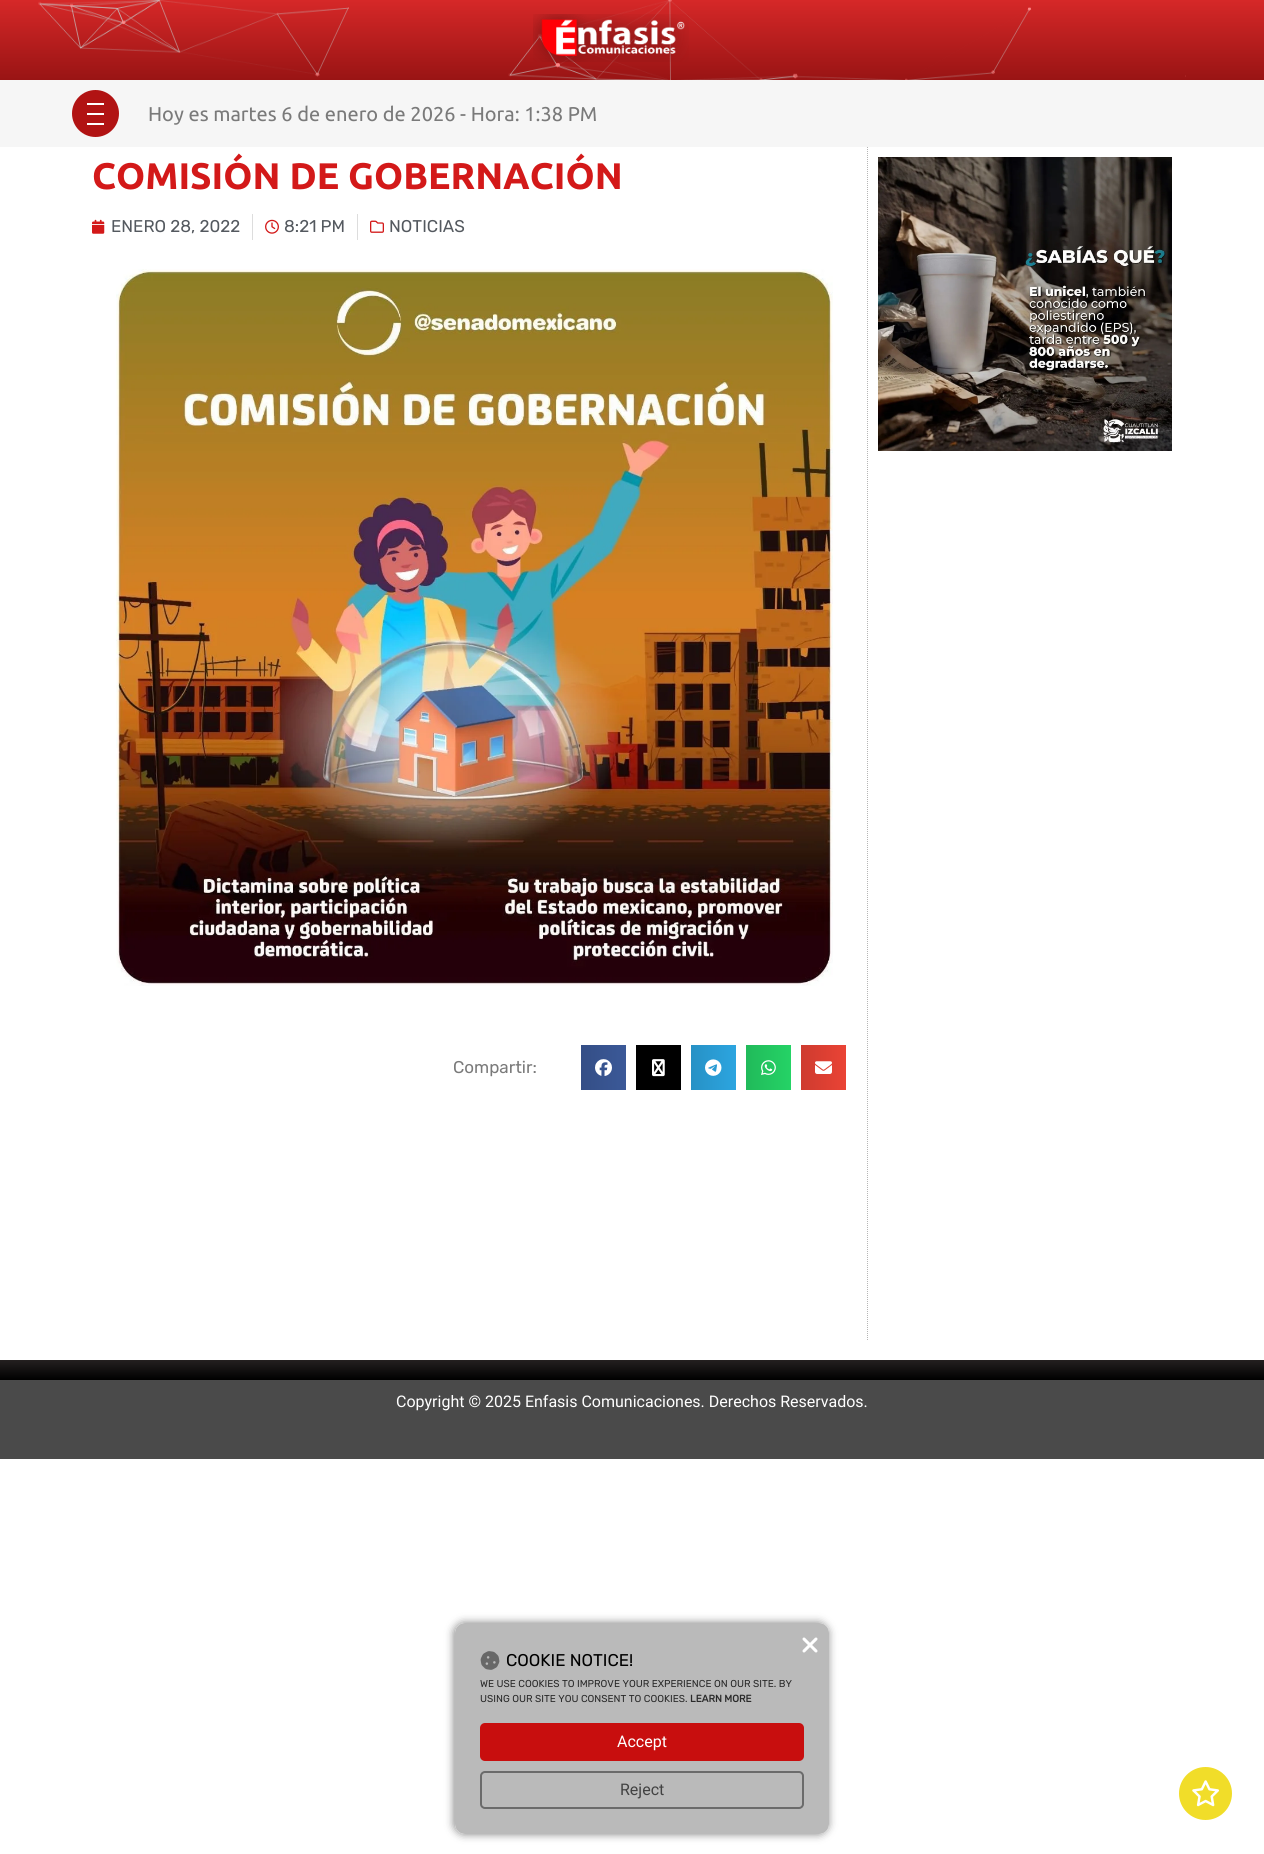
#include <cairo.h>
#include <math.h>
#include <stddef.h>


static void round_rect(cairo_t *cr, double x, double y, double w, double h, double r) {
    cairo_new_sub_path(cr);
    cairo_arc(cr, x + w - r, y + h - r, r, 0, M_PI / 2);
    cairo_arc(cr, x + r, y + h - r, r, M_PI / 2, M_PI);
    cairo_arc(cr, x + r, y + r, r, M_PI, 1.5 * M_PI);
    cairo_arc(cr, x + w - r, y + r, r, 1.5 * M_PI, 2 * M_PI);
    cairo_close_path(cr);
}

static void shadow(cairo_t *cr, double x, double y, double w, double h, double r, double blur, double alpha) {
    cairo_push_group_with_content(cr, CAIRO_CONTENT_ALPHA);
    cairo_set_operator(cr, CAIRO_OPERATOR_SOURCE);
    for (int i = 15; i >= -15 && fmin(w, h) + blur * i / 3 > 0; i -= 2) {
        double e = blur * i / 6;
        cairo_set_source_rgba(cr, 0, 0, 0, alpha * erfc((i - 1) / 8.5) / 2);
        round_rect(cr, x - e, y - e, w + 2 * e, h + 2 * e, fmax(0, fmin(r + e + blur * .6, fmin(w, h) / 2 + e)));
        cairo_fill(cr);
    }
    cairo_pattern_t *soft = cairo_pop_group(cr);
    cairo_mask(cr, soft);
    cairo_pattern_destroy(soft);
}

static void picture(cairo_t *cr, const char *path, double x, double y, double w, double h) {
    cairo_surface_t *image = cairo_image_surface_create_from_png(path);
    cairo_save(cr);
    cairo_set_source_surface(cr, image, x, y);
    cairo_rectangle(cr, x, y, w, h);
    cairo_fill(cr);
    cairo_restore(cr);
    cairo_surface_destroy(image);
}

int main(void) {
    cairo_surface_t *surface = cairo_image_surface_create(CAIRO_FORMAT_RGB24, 1264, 1854);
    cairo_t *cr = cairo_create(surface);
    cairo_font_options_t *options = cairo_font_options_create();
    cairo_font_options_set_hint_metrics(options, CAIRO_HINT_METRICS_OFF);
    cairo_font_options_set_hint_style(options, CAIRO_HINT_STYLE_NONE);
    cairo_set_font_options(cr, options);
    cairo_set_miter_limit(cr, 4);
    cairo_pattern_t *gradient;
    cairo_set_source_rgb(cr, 1, 1, 1);
    cairo_paint(cr);
    gradient = cairo_pattern_create_linear(632, 0, 632, 80);
    cairo_pattern_add_color_stop_rgba(gradient, 0, 0.839, 0.157, 0.157, 1);
    cairo_pattern_add_color_stop_rgba(gradient, 1, 0.6, 0.078, 0.078, 1);
    cairo_set_source(cr, gradient);
    cairo_pattern_destroy(gradient);
    cairo_rectangle(cr, 0, 0, 1264, 80);
    cairo_fill(cr);
    picture(cr, "img1.png", 38, 0, 1148, 80);
    picture(cr, "img2.png", 533, 14, 156, 48);
    cairo_set_source_rgb(cr, 0.961, 0.961, 0.961);
    cairo_rectangle(cr, 0, 80, 1264, 67);
    cairo_fill(cr);
    cairo_set_source_rgb(cr, 0.694, 0.078, 0.078);
    cairo_arc(cr, 95.5, 113.5, 23.5, 0, 2 * M_PI);
    cairo_fill(cr);
    cairo_set_source_rgb(cr, 1, 1, 1);
    cairo_rectangle(cr, 87, 113, 17, 2);
    cairo_fill(cr);
    cairo_rectangle(cr, 87, 103, 17, 2);
    cairo_fill(cr);
    cairo_rectangle(cr, 87, 123, 17, 2);
    cairo_fill(cr);
    cairo_select_font_face(cr, "Ubuntu", CAIRO_FONT_SLANT_NORMAL, CAIRO_FONT_WEIGHT_NORMAL);
    cairo_set_font_size(cr, 20);
    cairo_set_source_rgb(cr, 0.478, 0.478, 0.478);
    cairo_move_to(cr, 148, 121);
    cairo_show_text(cr, "Hoy es martes 6 de enero de 2026 - Hora: 1:38 PM");
    cairo_select_font_face(cr, "Ubuntu", CAIRO_FONT_SLANT_NORMAL, CAIRO_FONT_WEIGHT_BOLD);
    cairo_set_font_size(cr, 37);
    cairo_set_source_rgb(cr, 0.827, 0.098, 0.098);
    cairo_move_to(cr, 92, 189);
    cairo_show_text(cr, "COMISIÓN DE GOBERNACIÓN");
    picture(cr, "img3.png", 92, 219, 13, 15);
    cairo_select_font_face(cr, "Rubik", CAIRO_FONT_SLANT_NORMAL, CAIRO_FONT_WEIGHT_NORMAL);
    cairo_set_font_size(cr, 17);
    cairo_set_source_rgb(cr, 0.329, 0.349, 0.373);
    cairo_move_to(cr, 111, 232);
    cairo_show_text(cr, "ENERO 28, 2022");
    cairo_set_source_rgb(cr, 0.867, 0.867, 0.867);
    cairo_rectangle(cr, 252, 214, 1, 26);
    cairo_fill(cr);
    picture(cr, "img4.png", 265, 219, 14, 15);
    cairo_set_source_rgb(cr, 0.329, 0.349, 0.373);
    cairo_move_to(cr, 284, 232);
    cairo_show_text(cr, "8:21 PM");
    cairo_set_source_rgb(cr, 0.867, 0.867, 0.867);
    cairo_rectangle(cr, 357, 214, 1, 26);
    cairo_fill(cr);
    picture(cr, "img5.png", 370, 220, 14, 13);
    cairo_set_source_rgb(cr, 0.329, 0.349, 0.373);
    cairo_move_to(cr, 389, 232);
    cairo_show_text(cr, "NOTICIAS");
    picture(cr, "img6.png", 116, 269, 717, 717);
    cairo_set_source_rgb(cr, 0.478, 0.478, 0.478);
    cairo_move_to(cr, 453, 1073);
    cairo_show_text(cr, "Compartir:");
    gradient = cairo_pattern_create_linear(581, 1068, 626, 1068);
    cairo_pattern_add_color_stop_rgba(gradient, 0, 0.204, 0.306, 0.525, 1);
    cairo_pattern_add_color_stop_rgba(gradient, 1, 0.231, 0.349, 0.596, 1);
    cairo_set_source(cr, gradient);
    cairo_pattern_destroy(gradient);
    cairo_rectangle(cr, 581, 1045, 45, 45);
    cairo_fill(cr);
    picture(cr, "img7.png", 595, 1059, 17, 17);
    cairo_set_source_rgb(cr, 0, 0, 0);
    cairo_rectangle(cr, 636, 1045, 45, 45);
    cairo_fill(cr);
    picture(cr, "img8.png", 652, 1059, 13, 18);
    gradient = cairo_pattern_create_linear(691, 1068, 736, 1068);
    cairo_pattern_add_color_stop_rgba(gradient, 0, 0.153, 0.569, 0.773, 1);
    cairo_pattern_add_color_stop_rgba(gradient, 1, 0.173, 0.647, 0.878, 1);
    cairo_set_source(cr, gradient);
    cairo_pattern_destroy(gradient);
    cairo_rectangle(cr, 691, 1045, 45, 45);
    cairo_fill(cr);
    picture(cr, "img9.png", 705, 1059, 17, 17);
    gradient = cairo_pattern_create_linear(746, 1068, 791, 1068);
    cairo_pattern_add_color_stop_rgba(gradient, 0, 0.129, 0.729, 0.353, 1);
    cairo_pattern_add_color_stop_rgba(gradient, 1, 0.145, 0.827, 0.4, 1);
    cairo_set_source(cr, gradient);
    cairo_pattern_destroy(gradient);
    cairo_rectangle(cr, 746, 1045, 45, 45);
    cairo_fill(cr);
    picture(cr, "img10.png", 761, 1060, 15, 15);
    gradient = cairo_pattern_create_linear(801, 1068, 846, 1068);
    cairo_pattern_add_color_stop_rgba(gradient, 0, 0.808, 0.231, 0.184, 1);
    cairo_pattern_add_color_stop_rgba(gradient, 1, 0.918, 0.263, 0.208, 1);
    cairo_set_source(cr, gradient);
    cairo_pattern_destroy(gradient);
    cairo_rectangle(cr, 801, 1045, 45, 45);
    cairo_fill(cr);
    picture(cr, "img11.png", 815, 1061, 17, 13);
    cairo_new_path(cr);
    cairo_move_to(cr, 867.5, 147);
    cairo_line_to(cr, 867.5, 1340);
    cairo_set_source_rgb(cr, 0.71, 0.71, 0.71);
    cairo_set_line_width(cr, 1);
    cairo_set_dash(cr, (double[]){1, 1}, 2, 0);
    cairo_stroke(cr);
    picture(cr, "img12.png", 878, 157, 294, 294);
    gradient = cairo_pattern_create_linear(632, 1360, 632, 1380);
    cairo_pattern_add_color_stop_rgba(gradient, 0, 0.141, 0.125, 0.125, 1);
    cairo_pattern_add_color_stop_rgba(gradient, 1, 0, 0, 0, 1);
    cairo_set_source(cr, gradient);
    cairo_pattern_destroy(gradient);
    cairo_rectangle(cr, 0, 1360, 1264, 20);
    cairo_fill(cr);
    cairo_set_source_rgb(cr, 0.945, 0.867, 0.161);
    cairo_arc(cr, 1205.5, 1793.5, 26.5, 0, 2 * M_PI);
    cairo_fill(cr);
    picture(cr, "img13.png", 1192, 1780, 27, 27);
    cairo_set_source_rgb(cr, 0.29, 0.29, 0.29);
    cairo_rectangle(cr, 0, 1380, 1264, 79);
    cairo_fill(cr);
    cairo_select_font_face(cr, "Roboto", CAIRO_FONT_SLANT_NORMAL, CAIRO_FONT_WEIGHT_NORMAL);
    cairo_set_font_size(cr, 16);
    cairo_set_source_rgb(cr, 1, 1, 1);
    cairo_move_to(cr, 396, 1407);
    cairo_show_text(cr, "Copyright © 2025 Enfasis Comunicaciones. Derechos Reservados.");
    cairo_save(cr);
    cairo_set_fill_rule(cr, CAIRO_FILL_RULE_EVEN_ODD);
    cairo_new_path(cr);
    cairo_move_to(cr, 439, 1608);
    cairo_line_to(cr, 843, 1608);
    cairo_line_to(cr, 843, 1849);
    cairo_line_to(cr, 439, 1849);
    cairo_close_path(cr);
    cairo_move_to(cr, 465, 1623);
    cairo_line_to(cr, 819, 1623);
    cairo_curve_to(cr, 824.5, 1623, 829, 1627.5, 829, 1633);
    cairo_line_to(cr, 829, 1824);
    cairo_curve_to(cr, 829, 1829.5, 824.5, 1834, 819, 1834);
    cairo_line_to(cr, 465, 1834);
    cairo_curve_to(cr, 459.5, 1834, 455, 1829.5, 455, 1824);
    cairo_line_to(cr, 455, 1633);
    cairo_curve_to(cr, 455, 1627.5, 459.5, 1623, 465, 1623);
    cairo_close_path(cr);
    cairo_clip(cr);
    cairo_set_source_rgb(cr, 0, 0, 0);
    shadow(cr, 454, 1623, 374, 211, 10, 4.5, 0.5);
    cairo_restore(cr);
    cairo_set_source_rgba(cr, 0.718, 0.718, 0.718, 0.95);
    round_rect(cr, 455, 1623, 374, 211, 10);
    cairo_fill(cr);
    picture(cr, "img14.png", 802, 1637, 16, 16);
    picture(cr, "img15.png", 480, 1651, 20, 19);
    cairo_select_font_face(cr, "Rubik", CAIRO_FONT_SLANT_NORMAL, CAIRO_FONT_WEIGHT_NORMAL);
    cairo_set_font_size(cr, 17);
    cairo_set_source_rgb(cr, 0, 0, 0);
    cairo_move_to(cr, 506, 1666);
    cairo_show_text(cr, "COOKIE NOTICE!");
    cairo_set_font_size(cr, 10);
    cairo_set_source_rgb(cr, 0.165, 0.165, 0.165);
    cairo_move_to(cr, 480, 1687);
    cairo_show_text(cr, "WE USE COOKIES TO IMPROVE YOUR EXPERIENCE ON OUR SITE. BY");
    cairo_move_to(cr, 480, 1702);
    cairo_show_text(cr, "USING OUR SITE YOU CONSENT TO COOKIES.");
    cairo_select_font_face(cr, "Rubik", CAIRO_FONT_SLANT_NORMAL, CAIRO_FONT_WEIGHT_BOLD);
    cairo_move_to(cr, 690, 1702);
    cairo_show_text(cr, "LEARN MORE");
    cairo_set_source_rgb(cr, 0.784, 0.055, 0.055);
    round_rect(cr, 480, 1723, 324, 38, 5);
    cairo_fill(cr);
    cairo_select_font_face(cr, "Roboto", CAIRO_FONT_SLANT_NORMAL, CAIRO_FONT_WEIGHT_NORMAL);
    cairo_set_font_size(cr, 16);
    cairo_set_source_rgb(cr, 1, 1, 1);
    cairo_move_to(cr, 617, 1747);
    cairo_show_text(cr, "Accept");
    round_rect(cr, 481, 1772, 322, 36, 4);
    cairo_set_source_rgb(cr, 0.42, 0.42, 0.42);
    cairo_set_line_width(cr, 2);
    cairo_set_dash(cr, NULL, 0, 0);
    cairo_stroke(cr);
    cairo_set_source_rgb(cr, 0.259, 0.259, 0.259);
    cairo_move_to(cr, 620, 1795);
    cairo_show_text(cr, "Reject");
    cairo_surface_write_to_png(surface, "page.png");
    cairo_font_options_destroy(options);
    cairo_destroy(cr);
    cairo_surface_destroy(surface);
    return 0;
}
